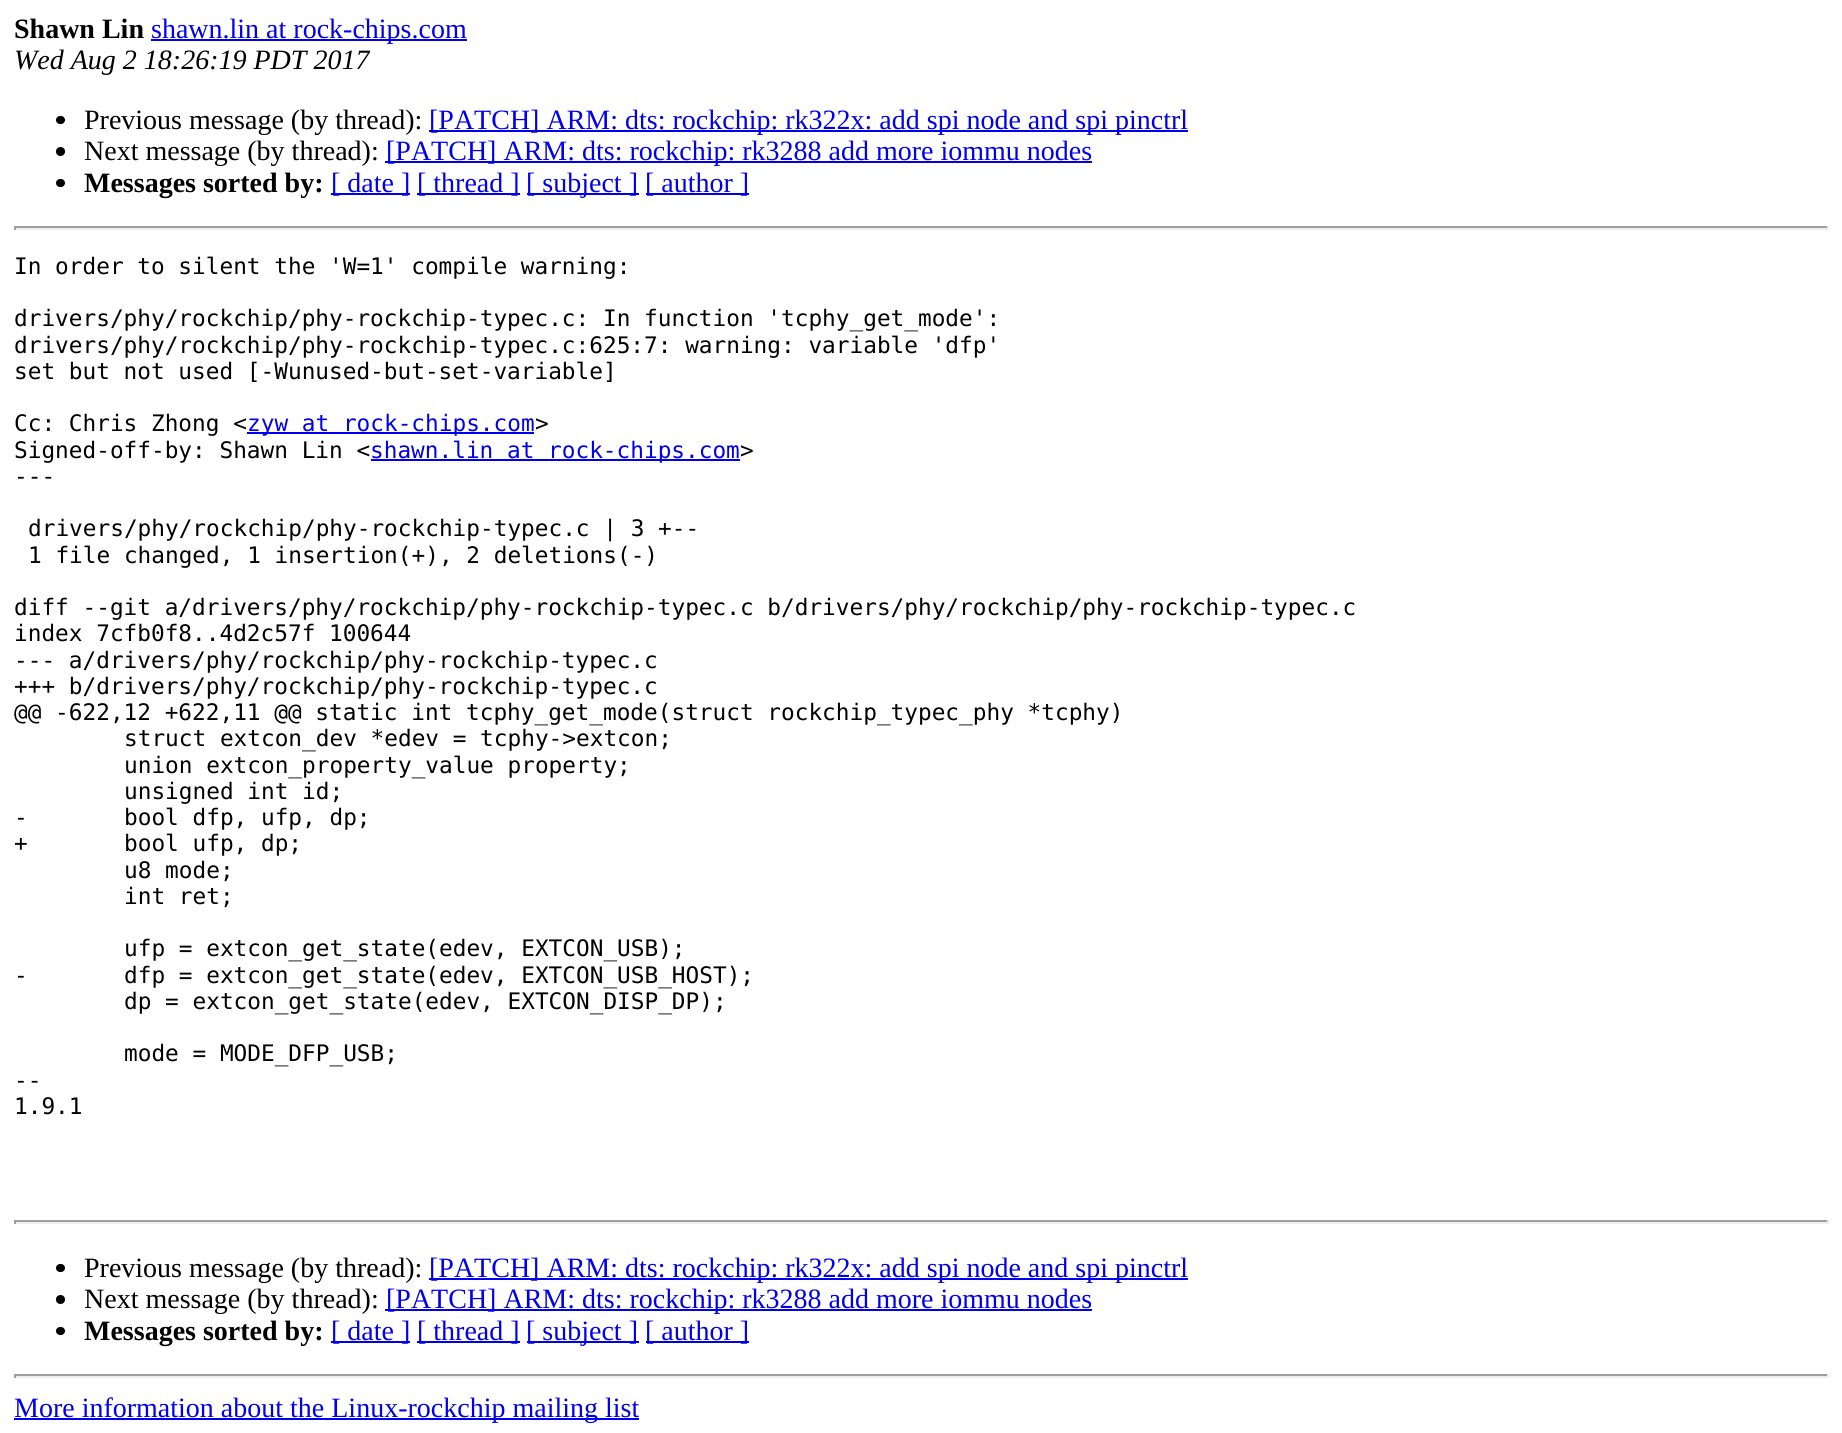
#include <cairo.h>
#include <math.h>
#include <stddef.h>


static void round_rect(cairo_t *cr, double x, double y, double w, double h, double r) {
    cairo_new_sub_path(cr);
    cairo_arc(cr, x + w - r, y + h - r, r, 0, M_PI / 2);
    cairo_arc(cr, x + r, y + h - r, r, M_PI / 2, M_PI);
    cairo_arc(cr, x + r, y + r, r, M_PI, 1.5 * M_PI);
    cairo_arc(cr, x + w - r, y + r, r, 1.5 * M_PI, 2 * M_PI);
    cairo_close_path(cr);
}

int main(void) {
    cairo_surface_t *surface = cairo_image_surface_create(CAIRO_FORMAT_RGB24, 1842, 1433);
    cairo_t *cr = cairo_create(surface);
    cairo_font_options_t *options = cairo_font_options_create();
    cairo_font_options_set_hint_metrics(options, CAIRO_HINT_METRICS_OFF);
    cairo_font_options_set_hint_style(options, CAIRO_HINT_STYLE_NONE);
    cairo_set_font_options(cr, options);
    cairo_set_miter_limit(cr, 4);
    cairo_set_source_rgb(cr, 1, 1, 1);
    cairo_paint(cr);
    cairo_select_font_face(cr, "Liberation Serif", CAIRO_FONT_SLANT_NORMAL, CAIRO_FONT_WEIGHT_BOLD);
    cairo_set_font_size(cr, 28);
    cairo_set_source_rgb(cr, 0, 0, 0);
    cairo_move_to(cr, 14, 38);
    cairo_show_text(cr, "Shawn Lin");
    cairo_set_source_rgb(cr, 0, 0, 0.933);
    cairo_rectangle(cr, 151, 39, 316, 2);
    cairo_fill(cr);
    cairo_select_font_face(cr, "Liberation Serif", CAIRO_FONT_SLANT_NORMAL, CAIRO_FONT_WEIGHT_NORMAL);
    cairo_move_to(cr, 151, 38);
    cairo_show_text(cr, "shawn.lin at rock-chips.com");
    cairo_select_font_face(cr, "Liberation Serif", CAIRO_FONT_SLANT_ITALIC, CAIRO_FONT_WEIGHT_NORMAL);
    cairo_set_source_rgb(cr, 0, 0, 0);
    cairo_move_to(cr, 14, 69);
    cairo_show_text(cr, "Wed Aug 2 18:26:19 PDT 2017");
    round_rect(cr, 56, 116, 9, 8, 4);
    cairo_fill(cr);
    cairo_select_font_face(cr, "Liberation Serif", CAIRO_FONT_SLANT_NORMAL, CAIRO_FONT_WEIGHT_NORMAL);
    cairo_move_to(cr, 84, 129);
    cairo_show_text(cr, "Previous message (by thread):");
    cairo_set_source_rgb(cr, 0, 0, 0.933);
    cairo_rectangle(cr, 429, 130, 759, 2);
    cairo_fill(cr);
    cairo_move_to(cr, 429, 129);
    cairo_show_text(cr, "[PATCH] ARM: dts: rockchip: rk322x: add spi node and spi pinctrl");
    cairo_set_source_rgb(cr, 0, 0, 0);
    cairo_new_path(cr);
    cairo_arc(cr, 60.5, 151.5, 4.5, 0, 2 * M_PI);
    cairo_fill(cr);
    cairo_move_to(cr, 84, 160);
    cairo_show_text(cr, "Next message (by thread):");
    cairo_set_source_rgb(cr, 0, 0, 0.933);
    cairo_rectangle(cr, 385, 161, 707, 2);
    cairo_fill(cr);
    cairo_move_to(cr, 386, 160);
    cairo_show_text(cr, "[PATCH] ARM: dts: rockchip: rk3288 add more iommu nodes");
    cairo_set_source_rgb(cr, 0, 0, 0);
    round_rect(cr, 56, 179, 9, 8, 4);
    cairo_fill(cr);
    cairo_select_font_face(cr, "Liberation Serif", CAIRO_FONT_SLANT_NORMAL, CAIRO_FONT_WEIGHT_BOLD);
    cairo_move_to(cr, 84, 192);
    cairo_show_text(cr, "Messages sorted by:");
    cairo_set_source_rgb(cr, 0, 0, 0.933);
    cairo_rectangle(cr, 331, 193, 79, 2);
    cairo_fill(cr);
    cairo_select_font_face(cr, "Liberation Serif", CAIRO_FONT_SLANT_NORMAL, CAIRO_FONT_WEIGHT_NORMAL);
    cairo_move_to(cr, 331, 192);
    cairo_show_text(cr, "[ date ]");
    cairo_rectangle(cr, 417, 193, 103, 2);
    cairo_fill(cr);
    cairo_move_to(cr, 417, 192);
    cairo_show_text(cr, "[ thread ]");
    cairo_rectangle(cr, 527, 193, 112, 2);
    cairo_fill(cr);
    cairo_move_to(cr, 526, 192);
    cairo_show_text(cr, "[ subject ]");
    cairo_rectangle(cr, 646, 193, 103, 2);
    cairo_fill(cr);
    cairo_move_to(cr, 645, 192);
    cairo_show_text(cr, "[ author ]");
    cairo_set_source_rgb(cr, 0.624, 0.624, 0.624);
    cairo_rectangle(cr, 14, 226, 1815, 2);
    cairo_fill(cr);
    cairo_set_source_rgb(cr, 0.933, 0.933, 0.933);
    cairo_rectangle(cr, 1827, 226, 2, 4);
    cairo_fill(cr);
    cairo_rectangle(cr, 14, 228, 1815, 2);
    cairo_fill(cr);
    cairo_set_source_rgb(cr, 0.624, 0.624, 0.624);
    cairo_rectangle(cr, 14, 226, 2, 4);
    cairo_fill(cr);
    cairo_select_font_face(cr, "DejaVu Sans Mono", CAIRO_FONT_SLANT_NORMAL, CAIRO_FONT_WEIGHT_NORMAL);
    cairo_set_font_size(cr, 22.75);
    cairo_set_source_rgb(cr, 0, 0, 0);
    cairo_move_to(cr, 14, 274);
    cairo_show_text(cr, "In order to silent the 'W=1' compile warning:");
    cairo_move_to(cr, 14, 326);
    cairo_show_text(cr, "drivers/phy/rockchip/phy-rockchip-typec.c: In function 'tcphy_get_mode':");
    cairo_move_to(cr, 14, 353);
    cairo_show_text(cr, "drivers/phy/rockchip/phy-rockchip-typec.c:625:7: warning: variable 'dfp'");
    cairo_move_to(cr, 14, 379);
    cairo_show_text(cr, "set but not used [-Wunused-but-set-variable]");
    cairo_move_to(cr, 14, 431);
    cairo_show_text(cr, "Cc: Chris Zhong <");
    cairo_set_source_rgb(cr, 0, 0, 0.933);
    cairo_rectangle(cr, 247, 432, 287, 2);
    cairo_fill(cr);
    cairo_move_to(cr, 247, 431);
    cairo_show_text(cr, "zyw at rock-chips.com");
    cairo_set_source_rgb(cr, 0, 0, 0);
    cairo_move_to(cr, 535, 431);
    cairo_show_text(cr, ">");
    cairo_move_to(cr, 14, 458);
    cairo_show_text(cr, "Signed-off-by: Shawn Lin <");
    cairo_set_source_rgb(cr, 0, 0, 0.933);
    cairo_rectangle(cr, 371, 459, 369, 2);
    cairo_fill(cr);
    cairo_move_to(cr, 370, 458);
    cairo_show_text(cr, "shawn.lin at rock-chips.com");
    cairo_set_source_rgb(cr, 0, 0, 0);
    cairo_move_to(cr, 740, 458);
    cairo_show_text(cr, ">");
    cairo_move_to(cr, 14, 484);
    cairo_show_text(cr, "---");
    cairo_move_to(cr, 28, 536);
    cairo_show_text(cr, "drivers/phy/rockchip/phy-rockchip-typec.c | 3 +--");
    cairo_move_to(cr, 28, 563);
    cairo_show_text(cr, "1 file changed, 1 insertion(+), 2 deletions(-)");
    cairo_move_to(cr, 14, 615);
    cairo_show_text(cr, "diff --git a/drivers/phy/rockchip/phy-rockchip-typec.c b/drivers/phy/rockchip/phy-rockchip-typec.c");
    cairo_move_to(cr, 14, 641);
    cairo_show_text(cr, "index 7cfb0f8..4d2c57f 100644");
    cairo_move_to(cr, 14, 668);
    cairo_show_text(cr, "--- a/drivers/phy/rockchip/phy-rockchip-typec.c");
    cairo_move_to(cr, 14, 694);
    cairo_show_text(cr, "+++ b/drivers/phy/rockchip/phy-rockchip-typec.c");
    cairo_move_to(cr, 14, 720);
    cairo_show_text(cr, "@@ -622,12 +622,11 @@ static int tcphy_get_mode(struct rockchip_typec_phy *tcphy)");
    cairo_move_to(cr, 124, 746);
    cairo_show_text(cr, "struct extcon_dev *edev = tcphy->extcon;");
    cairo_move_to(cr, 124, 773);
    cairo_show_text(cr, "union extcon_property_value property;");
    cairo_move_to(cr, 124, 799);
    cairo_show_text(cr, "unsigned int id;");
    cairo_move_to(cr, 14, 825);
    cairo_show_text(cr, "-");
    cairo_move_to(cr, 124, 825);
    cairo_show_text(cr, "bool dfp, ufp, dp;");
    cairo_move_to(cr, 14, 851);
    cairo_show_text(cr, "+");
    cairo_move_to(cr, 124, 851);
    cairo_show_text(cr, "bool ufp, dp;");
    cairo_move_to(cr, 124, 878);
    cairo_show_text(cr, "u8 mode;");
    cairo_move_to(cr, 124, 904);
    cairo_show_text(cr, "int ret;");
    cairo_move_to(cr, 124, 956);
    cairo_show_text(cr, "ufp = extcon_get_state(edev, EXTCON_USB);");
    cairo_move_to(cr, 14, 983);
    cairo_show_text(cr, "-");
    cairo_move_to(cr, 124, 983);
    cairo_show_text(cr, "dfp = extcon_get_state(edev, EXTCON_USB_HOST);");
    cairo_move_to(cr, 124, 1009);
    cairo_show_text(cr, "dp = extcon_get_state(edev, EXTCON_DISP_DP);");
    cairo_move_to(cr, 124, 1061);
    cairo_show_text(cr, "mode = MODE_DFP_USB;");
    cairo_move_to(cr, 14, 1088);
    cairo_show_text(cr, "--");
    cairo_move_to(cr, 14, 1114);
    cairo_show_text(cr, "1.9.1");
    cairo_set_source_rgb(cr, 0.624, 0.624, 0.624);
    cairo_rectangle(cr, 14, 1220, 1815, 2);
    cairo_fill(cr);
    cairo_set_source_rgb(cr, 0.933, 0.933, 0.933);
    cairo_rectangle(cr, 1827, 1220, 2, 4);
    cairo_fill(cr);
    cairo_rectangle(cr, 14, 1222, 1815, 2);
    cairo_fill(cr);
    cairo_set_source_rgb(cr, 0.624, 0.624, 0.624);
    cairo_rectangle(cr, 14, 1220, 2, 4);
    cairo_fill(cr);
    cairo_set_source_rgb(cr, 0, 0, 0);
    round_rect(cr, 56, 1264, 9, 8, 4);
    cairo_fill(cr);
    cairo_select_font_face(cr, "Liberation Serif", CAIRO_FONT_SLANT_NORMAL, CAIRO_FONT_WEIGHT_NORMAL);
    cairo_set_font_size(cr, 28);
    cairo_move_to(cr, 84, 1277);
    cairo_show_text(cr, "Previous message (by thread):");
    cairo_set_source_rgb(cr, 0, 0, 0.933);
    cairo_rectangle(cr, 429, 1278, 759, 2);
    cairo_fill(cr);
    cairo_move_to(cr, 429, 1277);
    cairo_show_text(cr, "[PATCH] ARM: dts: rockchip: rk322x: add spi node and spi pinctrl");
    cairo_set_source_rgb(cr, 0, 0, 0);
    cairo_new_path(cr);
    cairo_arc(cr, 60.5, 1299.5, 4.5, 0, 2 * M_PI);
    cairo_fill(cr);
    cairo_move_to(cr, 84, 1308);
    cairo_show_text(cr, "Next message (by thread):");
    cairo_set_source_rgb(cr, 0, 0, 0.933);
    cairo_rectangle(cr, 385, 1309, 707, 2);
    cairo_fill(cr);
    cairo_move_to(cr, 386, 1308);
    cairo_show_text(cr, "[PATCH] ARM: dts: rockchip: rk3288 add more iommu nodes");
    cairo_set_source_rgb(cr, 0, 0, 0);
    round_rect(cr, 56, 1327, 9, 8, 4);
    cairo_fill(cr);
    cairo_select_font_face(cr, "Liberation Serif", CAIRO_FONT_SLANT_NORMAL, CAIRO_FONT_WEIGHT_BOLD);
    cairo_move_to(cr, 84, 1340);
    cairo_show_text(cr, "Messages sorted by:");
    cairo_set_source_rgb(cr, 0, 0, 0.933);
    cairo_rectangle(cr, 331, 1341, 79, 2);
    cairo_fill(cr);
    cairo_select_font_face(cr, "Liberation Serif", CAIRO_FONT_SLANT_NORMAL, CAIRO_FONT_WEIGHT_NORMAL);
    cairo_move_to(cr, 331, 1340);
    cairo_show_text(cr, "[ date ]");
    cairo_rectangle(cr, 417, 1341, 103, 2);
    cairo_fill(cr);
    cairo_move_to(cr, 417, 1340);
    cairo_show_text(cr, "[ thread ]");
    cairo_rectangle(cr, 527, 1341, 112, 2);
    cairo_fill(cr);
    cairo_move_to(cr, 526, 1340);
    cairo_show_text(cr, "[ subject ]");
    cairo_rectangle(cr, 646, 1341, 103, 2);
    cairo_fill(cr);
    cairo_move_to(cr, 645, 1340);
    cairo_show_text(cr, "[ author ]");
    cairo_set_source_rgb(cr, 0.624, 0.624, 0.624);
    cairo_rectangle(cr, 14, 1374, 1815, 2);
    cairo_fill(cr);
    cairo_set_source_rgb(cr, 0.933, 0.933, 0.933);
    cairo_rectangle(cr, 1827, 1374, 2, 4);
    cairo_fill(cr);
    cairo_rectangle(cr, 14, 1376, 1815, 2);
    cairo_fill(cr);
    cairo_set_source_rgb(cr, 0.624, 0.624, 0.624);
    cairo_rectangle(cr, 14, 1374, 2, 4);
    cairo_fill(cr);
    cairo_set_source_rgb(cr, 0, 0, 0.933);
    cairo_rectangle(cr, 14, 1418, 625, 2);
    cairo_fill(cr);
    cairo_move_to(cr, 14, 1417);
    cairo_show_text(cr, "More information about the Linux-rockchip mailing list");
    cairo_surface_write_to_png(surface, "page.png");
    cairo_font_options_destroy(options);
    cairo_destroy(cr);
    cairo_surface_destroy(surface);
    return 0;
}
